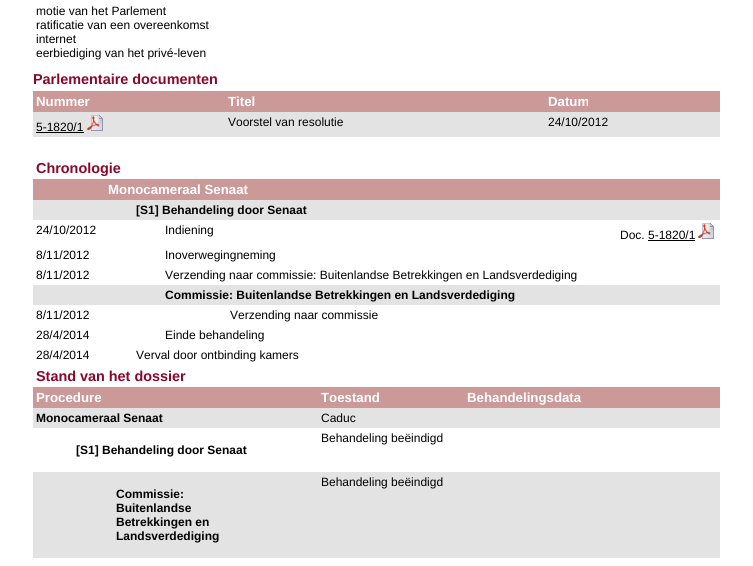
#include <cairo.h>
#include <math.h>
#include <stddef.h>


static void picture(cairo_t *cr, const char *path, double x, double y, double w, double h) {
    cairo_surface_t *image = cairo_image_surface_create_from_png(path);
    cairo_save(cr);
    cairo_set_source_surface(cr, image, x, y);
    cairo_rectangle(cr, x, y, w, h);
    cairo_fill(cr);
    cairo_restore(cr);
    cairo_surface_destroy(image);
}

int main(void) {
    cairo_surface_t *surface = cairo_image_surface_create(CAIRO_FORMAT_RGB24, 753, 566);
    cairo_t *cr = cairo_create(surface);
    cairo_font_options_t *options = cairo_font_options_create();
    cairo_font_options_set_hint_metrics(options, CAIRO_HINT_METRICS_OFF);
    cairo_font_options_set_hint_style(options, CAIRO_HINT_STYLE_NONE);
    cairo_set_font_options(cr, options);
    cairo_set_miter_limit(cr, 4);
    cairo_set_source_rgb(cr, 1, 1, 1);
    cairo_paint(cr);
    cairo_select_font_face(cr, "Liberation Sans", CAIRO_FONT_SLANT_NORMAL, CAIRO_FONT_WEIGHT_NORMAL);
    cairo_set_font_size(cr, 12);
    cairo_set_source_rgb(cr, 0, 0, 0);
    cairo_move_to(cr, 36, 15);
    cairo_show_text(cr, "motie van het Parlement");
    cairo_move_to(cr, 36, 29);
    cairo_show_text(cr, "ratificatie van een overeenkomst");
    cairo_move_to(cr, 36, 43);
    cairo_show_text(cr, "internet");
    cairo_move_to(cr, 36, 57);
    cairo_show_text(cr, "eerbiediging van het privé-leven");
    cairo_select_font_face(cr, "Liberation Sans", CAIRO_FONT_SLANT_NORMAL, CAIRO_FONT_WEIGHT_BOLD);
    cairo_set_font_size(cr, 14.4);
    cairo_set_source_rgb(cr, 0.541, 0.024, 0.169);
    cairo_move_to(cr, 33, 84);
    cairo_show_text(cr, "Parlementaire documenten");
    cairo_set_source_rgb(cr, 0.8, 0.6, 0.6);
    cairo_rectangle(cr, 33, 91, 687, 21);
    cairo_fill(cr);
    cairo_set_font_size(cr, 13.25);
    cairo_set_source_rgb(cr, 1, 1, 1);
    cairo_move_to(cr, 36, 106);
    cairo_show_text(cr, "Nummer");
    cairo_move_to(cr, 228, 106);
    cairo_show_text(cr, "Titel");
    cairo_move_to(cr, 548, 106);
    cairo_show_text(cr, "Datum");
    cairo_set_source_rgb(cr, 0.89, 0.89, 0.89);
    cairo_rectangle(cr, 33, 112, 687, 25);
    cairo_fill(cr);
    cairo_select_font_face(cr, "Liberation Sans", CAIRO_FONT_SLANT_NORMAL, CAIRO_FONT_WEIGHT_NORMAL);
    cairo_set_font_size(cr, 12);
    cairo_set_source_rgb(cr, 0, 0, 0);
    cairo_move_to(cr, 36, 131);
    cairo_show_text(cr, "5-1820/1");
    cairo_rectangle(cr, 36, 132, 48, 1);
    cairo_fill(cr);
    picture(cr, "img1.png", 87, 115, 16, 16);
    cairo_move_to(cr, 228, 126);
    cairo_show_text(cr, "Voorstel van resolutie");
    cairo_move_to(cr, 548, 126);
    cairo_show_text(cr, "24/10/2012");
    cairo_select_font_face(cr, "Liberation Sans", CAIRO_FONT_SLANT_NORMAL, CAIRO_FONT_WEIGHT_BOLD);
    cairo_set_font_size(cr, 14.4);
    cairo_set_source_rgb(cr, 0.541, 0.024, 0.169);
    cairo_move_to(cr, 36, 173);
    cairo_show_text(cr, "Chronologie");
    cairo_set_source_rgb(cr, 0.8, 0.6, 0.6);
    cairo_rectangle(cr, 33, 179, 687, 21);
    cairo_fill(cr);
    cairo_set_font_size(cr, 13.25);
    cairo_set_source_rgb(cr, 1, 1, 1);
    cairo_move_to(cr, 108, 194);
    cairo_show_text(cr, "Monocameraal Senaat");
    cairo_set_source_rgb(cr, 0.89, 0.89, 0.89);
    cairo_rectangle(cr, 33, 200, 687, 20);
    cairo_fill(cr);
    cairo_set_font_size(cr, 12);
    cairo_set_source_rgb(cr, 0, 0, 0);
    cairo_move_to(cr, 136, 214);
    cairo_show_text(cr, "[S1] Behandeling door Senaat");
    cairo_select_font_face(cr, "Liberation Sans", CAIRO_FONT_SLANT_NORMAL, CAIRO_FONT_WEIGHT_NORMAL);
    cairo_move_to(cr, 36, 234);
    cairo_show_text(cr, "24/10/2012");
    cairo_move_to(cr, 165, 234);
    cairo_show_text(cr, "Indiening");
    cairo_move_to(cr, 620, 239);
    cairo_show_text(cr, "Doc. 5-1820/1");
    picture(cr, "img2.png", 698, 223, 16, 16);
    cairo_rectangle(cr, 648, 240, 47, 1);
    cairo_fill(cr);
    cairo_move_to(cr, 36, 259);
    cairo_show_text(cr, "8/11/2012");
    cairo_move_to(cr, 165, 259);
    cairo_show_text(cr, "Inoverwegingneming");
    cairo_move_to(cr, 36, 279);
    cairo_show_text(cr, "8/11/2012");
    cairo_move_to(cr, 165, 279);
    cairo_show_text(cr, "Verzending naar commissie: Buitenlandse Betrekkingen en Landsverdediging");
    cairo_set_source_rgb(cr, 0.89, 0.89, 0.89);
    cairo_rectangle(cr, 33, 285, 687, 20);
    cairo_fill(cr);
    cairo_select_font_face(cr, "Liberation Sans", CAIRO_FONT_SLANT_NORMAL, CAIRO_FONT_WEIGHT_BOLD);
    cairo_set_source_rgb(cr, 0, 0, 0);
    cairo_move_to(cr, 165, 299);
    cairo_show_text(cr, "Commissie: Buitenlandse Betrekkingen en Landsverdediging");
    cairo_select_font_face(cr, "Liberation Sans", CAIRO_FONT_SLANT_NORMAL, CAIRO_FONT_WEIGHT_NORMAL);
    cairo_move_to(cr, 36, 319);
    cairo_show_text(cr, "8/11/2012");
    cairo_move_to(cr, 230, 319);
    cairo_show_text(cr, "Verzending naar commissie");
    cairo_move_to(cr, 36, 339);
    cairo_show_text(cr, "28/4/2014");
    cairo_move_to(cr, 165, 339);
    cairo_show_text(cr, "Einde behandeling");
    cairo_move_to(cr, 36, 359);
    cairo_show_text(cr, "28/4/2014");
    cairo_move_to(cr, 136, 359);
    cairo_show_text(cr, "Verval door ontbinding kamers");
    cairo_select_font_face(cr, "Liberation Sans", CAIRO_FONT_SLANT_NORMAL, CAIRO_FONT_WEIGHT_BOLD);
    cairo_set_font_size(cr, 14.4);
    cairo_set_source_rgb(cr, 0.541, 0.024, 0.169);
    cairo_move_to(cr, 36, 381);
    cairo_show_text(cr, "Stand van het dossier");
    cairo_set_source_rgb(cr, 0.8, 0.6, 0.6);
    cairo_rectangle(cr, 33, 387, 687, 21);
    cairo_fill(cr);
    cairo_set_font_size(cr, 13.25);
    cairo_set_source_rgb(cr, 1, 1, 1);
    cairo_move_to(cr, 36, 402);
    cairo_show_text(cr, "Procedure");
    cairo_move_to(cr, 321, 402);
    cairo_show_text(cr, "Toestand");
    cairo_move_to(cr, 467, 402);
    cairo_show_text(cr, "Behandelingsdata");
    cairo_set_source_rgb(cr, 0.89, 0.89, 0.89);
    cairo_rectangle(cr, 33, 408, 687, 20);
    cairo_fill(cr);
    cairo_set_font_size(cr, 12);
    cairo_set_source_rgb(cr, 0, 0, 0);
    cairo_move_to(cr, 36, 422);
    cairo_show_text(cr, "Monocameraal Senaat");
    cairo_select_font_face(cr, "Liberation Sans", CAIRO_FONT_SLANT_NORMAL, CAIRO_FONT_WEIGHT_NORMAL);
    cairo_move_to(cr, 321, 422);
    cairo_show_text(cr, "Caduc");
    cairo_move_to(cr, 321, 442);
    cairo_show_text(cr, "Behandeling beëindigd");
    cairo_select_font_face(cr, "Liberation Sans", CAIRO_FONT_SLANT_NORMAL, CAIRO_FONT_WEIGHT_BOLD);
    cairo_move_to(cr, 76, 454);
    cairo_show_text(cr, "[S1] Behandeling door Senaat");
    cairo_set_source_rgb(cr, 0.89, 0.89, 0.89);
    cairo_rectangle(cr, 33, 472, 687, 86);
    cairo_fill(cr);
    cairo_select_font_face(cr, "Liberation Sans", CAIRO_FONT_SLANT_NORMAL, CAIRO_FONT_WEIGHT_NORMAL);
    cairo_set_source_rgb(cr, 0, 0, 0);
    cairo_move_to(cr, 321, 486);
    cairo_show_text(cr, "Behandeling beëindigd");
    cairo_select_font_face(cr, "Liberation Sans", CAIRO_FONT_SLANT_NORMAL, CAIRO_FONT_WEIGHT_BOLD);
    cairo_move_to(cr, 116, 498);
    cairo_show_text(cr, "Commissie:");
    cairo_move_to(cr, 116, 512);
    cairo_show_text(cr, "Buitenlandse");
    cairo_move_to(cr, 116, 526);
    cairo_show_text(cr, "Betrekkingen en");
    cairo_move_to(cr, 116, 540);
    cairo_show_text(cr, "Landsverdediging");
    cairo_surface_write_to_png(surface, "page.png");
    cairo_font_options_destroy(options);
    cairo_destroy(cr);
    cairo_surface_destroy(surface);
    return 0;
}
